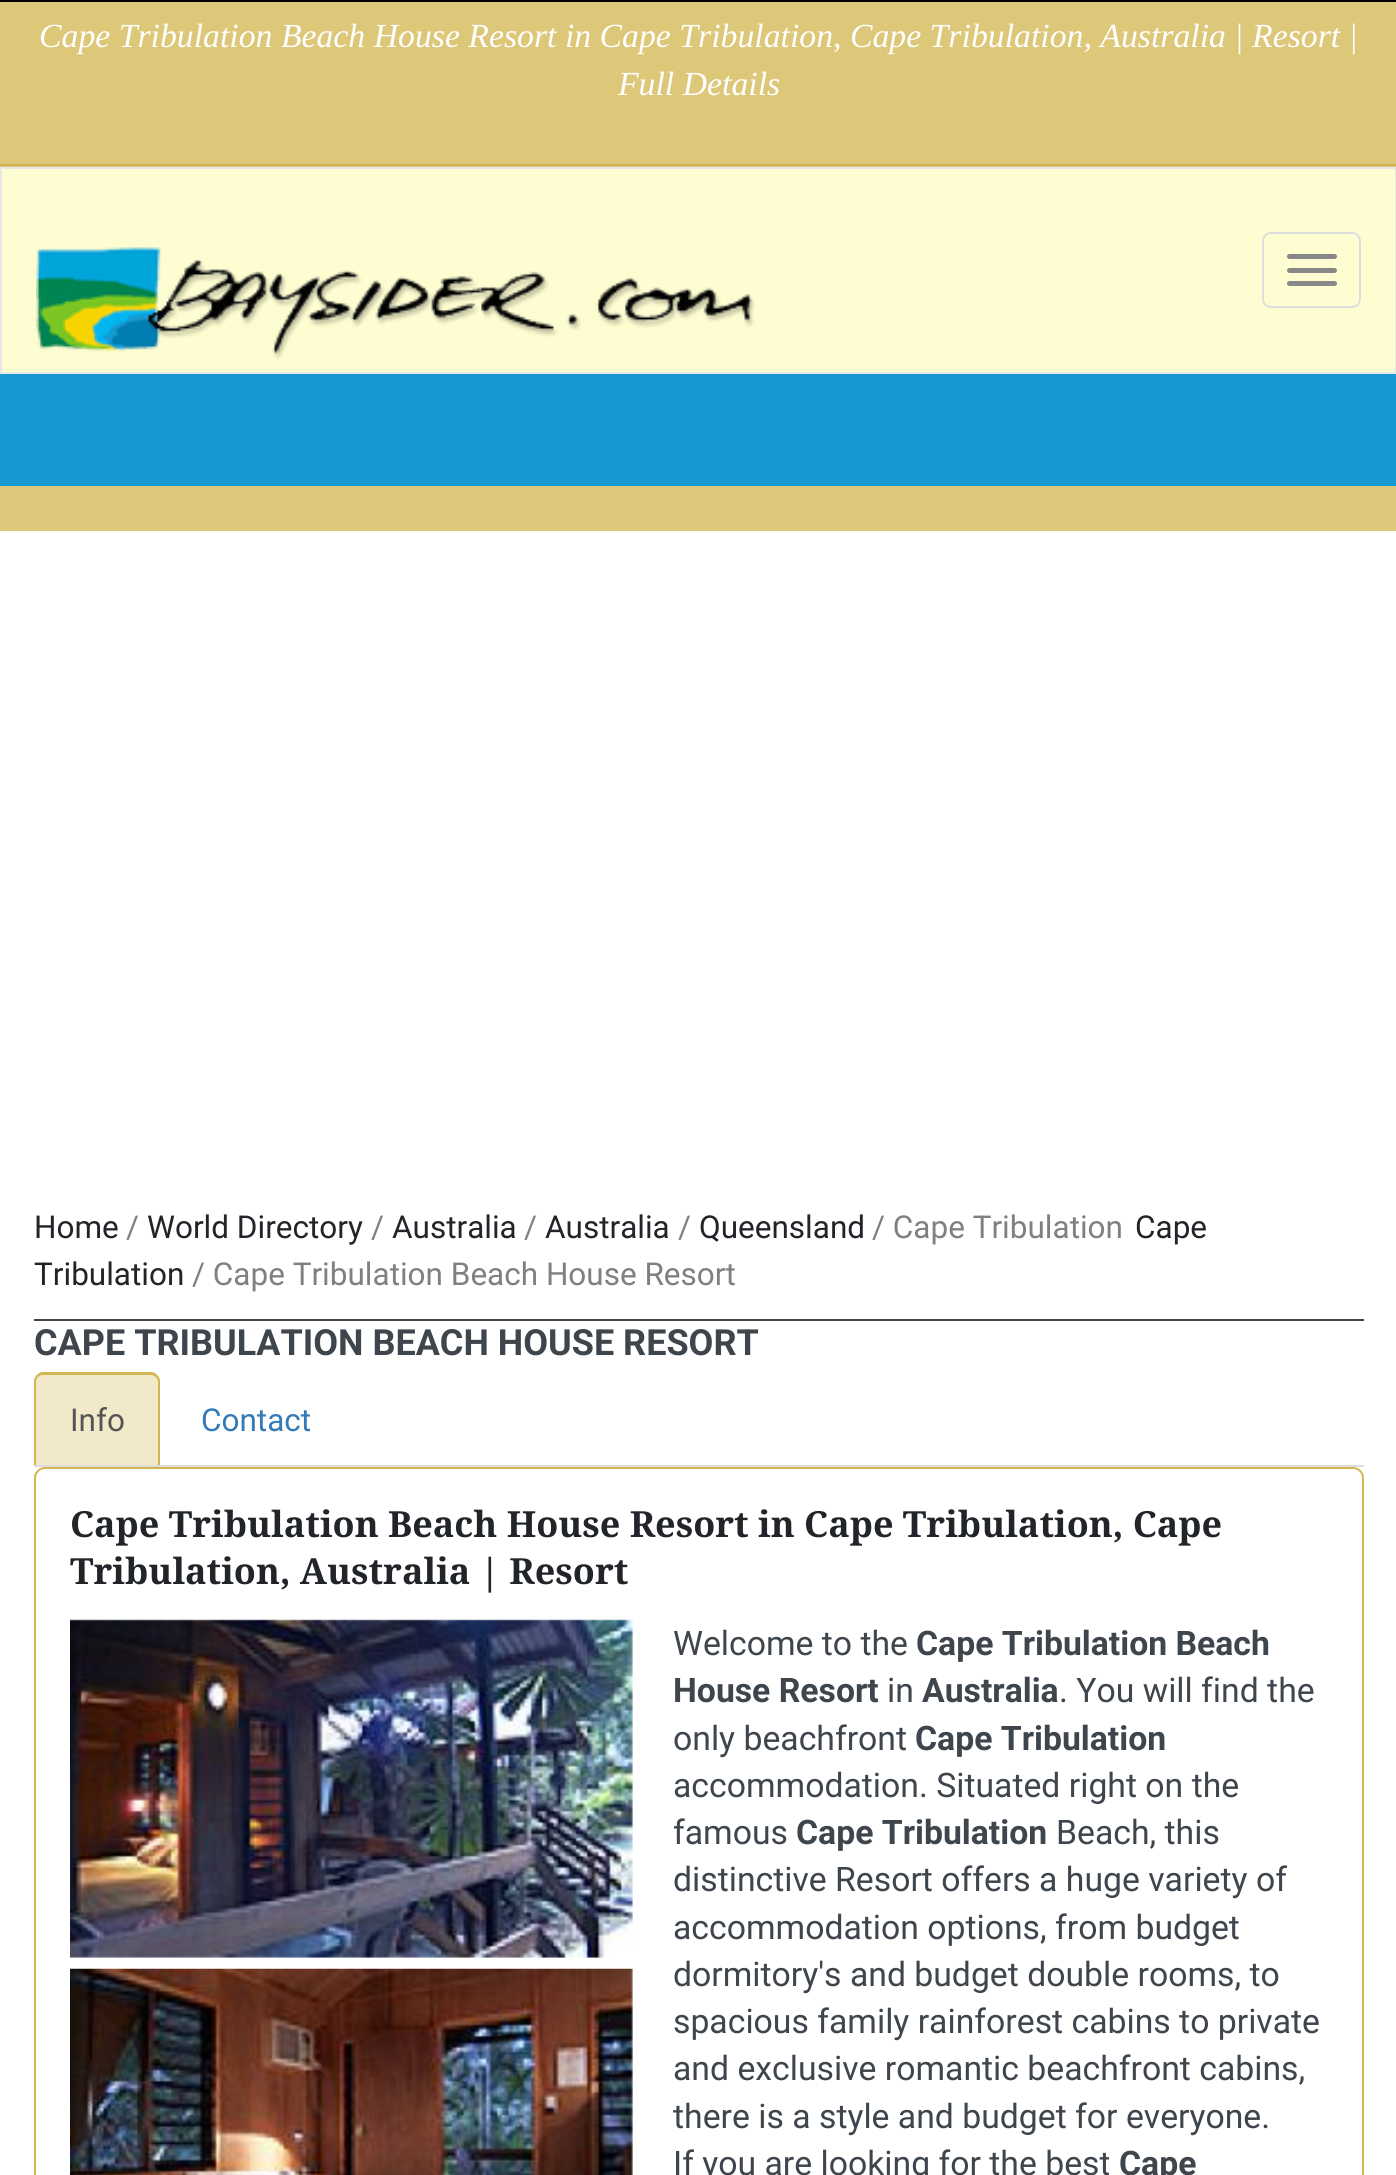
#include <cairo.h>
#include <math.h>
#include <stddef.h>


static void round_rect(cairo_t *cr, double x, double y, double w, double h, double r) {
    cairo_new_sub_path(cr);
    cairo_arc(cr, x + w - r, y + h - r, r, 0, M_PI / 2);
    cairo_arc(cr, x + r, y + h - r, r, M_PI / 2, M_PI);
    cairo_arc(cr, x + r, y + r, r, M_PI, 1.5 * M_PI);
    cairo_arc(cr, x + w - r, y + r, r, 1.5 * M_PI, 2 * M_PI);
    cairo_close_path(cr);
}

static void picture(cairo_t *cr, const char *path, double x, double y, double w, double h) {
    cairo_surface_t *image = cairo_image_surface_create_from_png(path);
    cairo_save(cr);
    cairo_set_source_surface(cr, image, x, y);
    cairo_rectangle(cr, x, y, w, h);
    cairo_fill(cr);
    cairo_restore(cr);
    cairo_surface_destroy(image);
}

int main(void) {
    cairo_surface_t *surface = cairo_image_surface_create(CAIRO_FORMAT_RGB24, 1396, 2175);
    cairo_t *cr = cairo_create(surface);
    cairo_font_options_t *options = cairo_font_options_create();
    cairo_font_options_set_hint_metrics(options, CAIRO_HINT_METRICS_OFF);
    cairo_font_options_set_hint_style(options, CAIRO_HINT_STYLE_NONE);
    cairo_set_font_options(cr, options);
    cairo_set_miter_limit(cr, 4);
    cairo_set_source_rgb(cr, 0.867, 0.78, 0.471);
    cairo_paint(cr);
    cairo_set_source_rgb(cr, 0, 0, 0);
    cairo_rectangle(cr, 0, 0, 1396, 2);
    cairo_fill(cr);
    cairo_set_source_rgb(cr, 0.09, 0.604, 0.824);
    cairo_rectangle(cr, 0, 374, 1396, 112);
    cairo_fill(cr);
    cairo_set_source_rgb(cr, 0.827, 0.714, 0.31);
    cairo_rectangle(cr, 0, 164, 1396, 2);
    cairo_fill(cr);
    cairo_select_font_face(cr, "Liberation Serif", CAIRO_FONT_SLANT_ITALIC, CAIRO_FONT_WEIGHT_NORMAL);
    cairo_set_font_size(cr, 33.75);
    cairo_set_source_rgb(cr, 1, 1, 1);
    cairo_move_to(cr, 39, 47);
    cairo_show_text(cr, "Cape Tribulation Beach House Resort in Cape Tribulation, Cape Tribulation, Australia | Resort |");
    cairo_move_to(cr, 618, 95);
    cairo_show_text(cr, "Full Details");
    cairo_set_source_rgb(cr, 0.996, 0.992, 0.82);
    cairo_rectangle(cr, 1, 168, 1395, 205);
    cairo_fill_preserve(cr);
    cairo_set_source_rgb(cr, 0.906, 0.906, 0.906);
    cairo_stroke(cr);
    picture(cr, "img1.png", 36, 247, 719, 113);
    round_rect(cr, 1263, 233, 97, 74, 8);
    cairo_set_source_rgb(cr, 0.867, 0.867, 0.867);
    cairo_stroke(cr);
    cairo_set_source_rgb(cr, 0.533, 0.533, 0.533);
    round_rect(cr, 1287, 254, 50, 5, 2.5);
    cairo_fill(cr);
    round_rect(cr, 1287, 268, 50, 5, 2.5);
    cairo_fill(cr);
    round_rect(cr, 1287, 281, 50, 5, 2.5);
    cairo_fill(cr);
    cairo_set_source_rgb(cr, 1, 1, 1);
    cairo_rectangle(cr, 0, 531, 1396, 1644);
    cairo_fill(cr);
    cairo_select_font_face(cr, "Roboto", CAIRO_FONT_SLANT_NORMAL, CAIRO_FONT_WEIGHT_NORMAL);
    cairo_set_font_size(cr, 31.5);
    cairo_set_source_rgb(cr, 0.129, 0.141, 0.157);
    cairo_move_to(cr, 34, 1238);
    cairo_show_text(cr, "Home");
    cairo_set_source_rgb(cr, 0.502, 0.502, 0.502);
    cairo_move_to(cr, 126, 1238);
    cairo_show_text(cr, "/");
    cairo_set_source_rgb(cr, 0.129, 0.141, 0.157);
    cairo_move_to(cr, 147, 1238);
    cairo_show_text(cr, "World Directory");
    cairo_set_source_rgb(cr, 0.502, 0.502, 0.502);
    cairo_move_to(cr, 371, 1238);
    cairo_show_text(cr, "/");
    cairo_set_source_rgb(cr, 0.129, 0.141, 0.157);
    cairo_move_to(cr, 392, 1238);
    cairo_show_text(cr, "Australia");
    cairo_set_source_rgb(cr, 0.502, 0.502, 0.502);
    cairo_move_to(cr, 524, 1238);
    cairo_show_text(cr, "/");
    cairo_set_source_rgb(cr, 0.129, 0.141, 0.157);
    cairo_move_to(cr, 545, 1238);
    cairo_show_text(cr, "Australia");
    cairo_set_source_rgb(cr, 0.502, 0.502, 0.502);
    cairo_move_to(cr, 678, 1238);
    cairo_show_text(cr, "/");
    cairo_set_source_rgb(cr, 0.129, 0.141, 0.157);
    cairo_move_to(cr, 699, 1238);
    cairo_show_text(cr, "Queensland");
    cairo_set_source_rgb(cr, 0.502, 0.502, 0.502);
    cairo_move_to(cr, 872, 1238);
    cairo_show_text(cr, "/ Cape Tribulation");
    cairo_set_source_rgb(cr, 0.129, 0.141, 0.157);
    cairo_move_to(cr, 1135, 1238);
    cairo_show_text(cr, "Cape");
    cairo_move_to(cr, 34, 1285);
    cairo_show_text(cr, "Tribulation");
    cairo_set_source_rgb(cr, 0.502, 0.502, 0.502);
    cairo_move_to(cr, 192, 1285);
    cairo_show_text(cr, "/ Cape Tribulation Beach House Resort");
    cairo_set_source_rgb(cr, 0.243, 0.271, 0.298);
    cairo_rectangle(cr, 34, 1319, 1330, 2);
    cairo_fill(cr);
    cairo_select_font_face(cr, "Roboto", CAIRO_FONT_SLANT_NORMAL, CAIRO_FONT_WEIGHT_BOLD);
    cairo_set_font_size(cr, 36);
    cairo_move_to(cr, 34, 1355);
    cairo_show_text(cr, "CAPE TRIBULATION BEACH HOUSE RESORT");
    cairo_set_source_rgb(cr, 0.867, 0.867, 0.867);
    cairo_rectangle(cr, 34, 1465, 1330, 2);
    cairo_fill(cr);
    cairo_set_source_rgb(cr, 0.945, 0.914, 0.788);
    cairo_new_path(cr);
    cairo_move_to(cr, 43, 1373);
    cairo_line_to(cr, 151, 1373);
    cairo_curve_to(cr, 156, 1373, 160, 1377, 160, 1382);
    cairo_line_to(cr, 160, 1465);
    cairo_line_to(cr, 34, 1465);
    cairo_line_to(cr, 34, 1382);
    cairo_curve_to(cr, 34, 1377, 38, 1373, 43, 1373);
    cairo_close_path(cr);
    cairo_fill(cr);
    cairo_set_source_rgb(cr, 0.827, 0.714, 0.31);
    cairo_set_fill_rule(cr, CAIRO_FILL_RULE_EVEN_ODD);
    cairo_new_path(cr);
    cairo_move_to(cr, 43, 1372);
    cairo_line_to(cr, 151, 1372);
    cairo_curve_to(cr, 156, 1372, 160, 1377, 160, 1382);
    cairo_line_to(cr, 160, 1465);
    cairo_line_to(cr, 34, 1465);
    cairo_line_to(cr, 34, 1382);
    cairo_curve_to(cr, 34, 1377, 38, 1372, 43, 1372);
    cairo_close_path(cr);
    cairo_move_to(cr, 43, 1375);
    cairo_line_to(cr, 151, 1375);
    cairo_curve_to(cr, 154, 1375, 158, 1378, 158, 1382);
    cairo_line_to(cr, 158, 1465);
    cairo_line_to(cr, 36, 1465);
    cairo_line_to(cr, 36, 1382);
    cairo_curve_to(cr, 36, 1378, 39, 1375, 43, 1375);
    cairo_close_path(cr);
    cairo_fill(cr);
    cairo_select_font_face(cr, "Roboto", CAIRO_FONT_SLANT_NORMAL, CAIRO_FONT_WEIGHT_NORMAL);
    cairo_set_font_size(cr, 31.5);
    cairo_set_source_rgb(cr, 0.333, 0.333, 0.333);
    cairo_move_to(cr, 70, 1431);
    cairo_show_text(cr, "Info");
    cairo_set_source_rgb(cr, 0.2, 0.478, 0.718);
    cairo_move_to(cr, 201, 1431);
    cairo_show_text(cr, "Contact");
    round_rect(cr, 35, 1468, 1328, 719, 10);
    cairo_set_source_rgb(cr, 0.827, 0.714, 0.31);
    cairo_stroke(cr);
    cairo_select_font_face(cr, "Droid Serif", CAIRO_FONT_SLANT_NORMAL, CAIRO_FONT_WEIGHT_BOLD);
    cairo_set_font_size(cr, 36);
    cairo_set_source_rgb(cr, 0.129, 0.141, 0.157);
    cairo_move_to(cr, 70, 1537);
    cairo_show_text(cr, "Cape Tribulation Beach House Resort in Cape Tribulation, Cape");
    cairo_move_to(cr, 70, 1584);
    cairo_show_text(cr, "Tribulation, Australia | Resort");
    picture(cr, "img2.png", 70, 1619, 563, 339);
    picture(cr, "img3.png", 70, 1968, 563, 207);
    cairo_select_font_face(cr, "Roboto", CAIRO_FONT_SLANT_NORMAL, CAIRO_FONT_WEIGHT_NORMAL);
    cairo_set_font_size(cr, 33.75);
    cairo_set_source_rgb(cr, 0.243, 0.271, 0.298);
    cairo_move_to(cr, 673, 1655);
    cairo_show_text(cr, "Welcome to the");
    cairo_select_font_face(cr, "Roboto", CAIRO_FONT_SLANT_NORMAL, CAIRO_FONT_WEIGHT_BOLD);
    cairo_move_to(cr, 916, 1655);
    cairo_show_text(cr, "Cape Tribulation Beach");
    cairo_move_to(cr, 673, 1702);
    cairo_show_text(cr, "House Resort");
    cairo_select_font_face(cr, "Roboto", CAIRO_FONT_SLANT_NORMAL, CAIRO_FONT_WEIGHT_NORMAL);
    cairo_move_to(cr, 887, 1702);
    cairo_show_text(cr, "in");
    cairo_select_font_face(cr, "Roboto", CAIRO_FONT_SLANT_NORMAL, CAIRO_FONT_WEIGHT_BOLD);
    cairo_move_to(cr, 922, 1702);
    cairo_show_text(cr, "Australia");
    cairo_select_font_face(cr, "Roboto", CAIRO_FONT_SLANT_NORMAL, CAIRO_FONT_WEIGHT_NORMAL);
    cairo_move_to(cr, 1059, 1702);
    cairo_show_text(cr, ". You will find the");
    cairo_move_to(cr, 673, 1750);
    cairo_show_text(cr, "only beachfront");
    cairo_select_font_face(cr, "Roboto", CAIRO_FONT_SLANT_NORMAL, CAIRO_FONT_WEIGHT_BOLD);
    cairo_move_to(cr, 915, 1750);
    cairo_show_text(cr, "Cape Tribulation");
    cairo_select_font_face(cr, "Roboto", CAIRO_FONT_SLANT_NORMAL, CAIRO_FONT_WEIGHT_NORMAL);
    cairo_move_to(cr, 673, 1797);
    cairo_show_text(cr, "accommodation. Situated right on the");
    cairo_move_to(cr, 673, 1844);
    cairo_show_text(cr, "famous");
    cairo_select_font_face(cr, "Roboto", CAIRO_FONT_SLANT_NORMAL, CAIRO_FONT_WEIGHT_BOLD);
    cairo_move_to(cr, 796, 1844);
    cairo_show_text(cr, "Cape Tribulation");
    cairo_select_font_face(cr, "Roboto", CAIRO_FONT_SLANT_NORMAL, CAIRO_FONT_WEIGHT_NORMAL);
    cairo_move_to(cr, 1056, 1844);
    cairo_show_text(cr, "Beach, this");
    cairo_move_to(cr, 673, 1891);
    cairo_show_text(cr, "distinctive Resort offers a huge variety of");
    cairo_move_to(cr, 673, 1939);
    cairo_show_text(cr, "accommodation options, from budget");
    cairo_move_to(cr, 673, 1986);
    cairo_show_text(cr, "dormitory's and budget double rooms, to");
    cairo_move_to(cr, 673, 2033);
    cairo_show_text(cr, "spacious family rainforest cabins to private");
    cairo_move_to(cr, 673, 2080);
    cairo_show_text(cr, "and exclusive romantic beachfront cabins,");
    cairo_move_to(cr, 673, 2128);
    cairo_show_text(cr, "there is a style and budget for everyone.");
    cairo_move_to(cr, 673, 2175);
    cairo_show_text(cr, "If you are looking for the best");
    cairo_select_font_face(cr, "Roboto", CAIRO_FONT_SLANT_NORMAL, CAIRO_FONT_WEIGHT_BOLD);
    cairo_move_to(cr, 1119, 2175);
    cairo_show_text(cr, "Cape");
    cairo_surface_write_to_png(surface, "page.png");
    cairo_font_options_destroy(options);
    cairo_destroy(cr);
    cairo_surface_destroy(surface);
    return 0;
}
